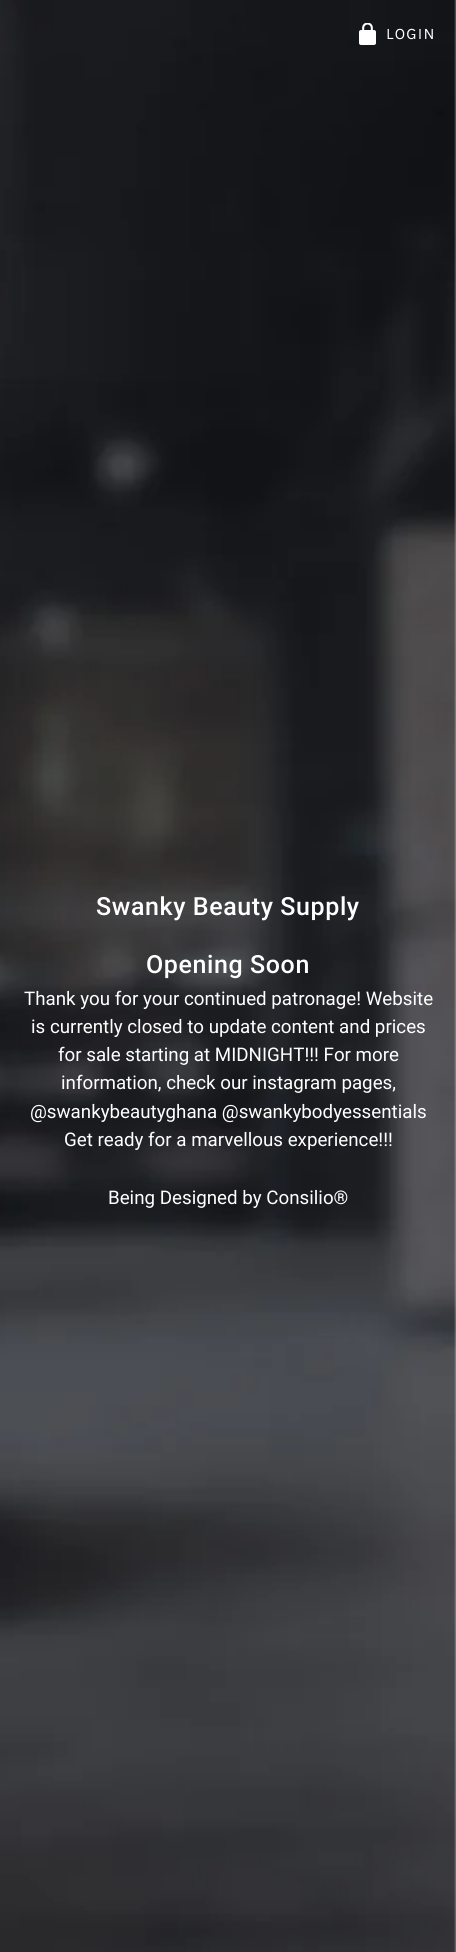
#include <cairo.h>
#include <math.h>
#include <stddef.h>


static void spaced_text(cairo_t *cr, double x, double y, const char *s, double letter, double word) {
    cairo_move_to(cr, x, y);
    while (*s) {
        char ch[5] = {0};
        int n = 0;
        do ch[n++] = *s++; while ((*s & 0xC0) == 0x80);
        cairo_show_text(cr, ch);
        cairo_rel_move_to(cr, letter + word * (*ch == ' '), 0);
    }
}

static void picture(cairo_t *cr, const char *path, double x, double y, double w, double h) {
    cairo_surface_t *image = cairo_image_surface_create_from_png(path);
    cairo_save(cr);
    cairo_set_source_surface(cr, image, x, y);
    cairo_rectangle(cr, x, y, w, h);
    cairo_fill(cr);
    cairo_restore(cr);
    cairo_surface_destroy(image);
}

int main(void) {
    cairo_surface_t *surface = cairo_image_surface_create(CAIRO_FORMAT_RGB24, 456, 1952);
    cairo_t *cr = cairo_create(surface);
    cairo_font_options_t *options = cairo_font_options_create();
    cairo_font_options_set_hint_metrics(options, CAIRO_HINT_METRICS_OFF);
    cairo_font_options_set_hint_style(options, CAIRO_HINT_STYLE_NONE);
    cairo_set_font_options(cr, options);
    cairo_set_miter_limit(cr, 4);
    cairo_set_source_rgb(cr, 1, 1, 1);
    cairo_paint(cr);
    picture(cr, "img1.png", 0, 0, 456, 1952);
    picture(cr, "img2.png", 359, 23, 17, 22);
    cairo_select_font_face(cr, "Karla", CAIRO_FONT_SLANT_NORMAL, CAIRO_FONT_WEIGHT_NORMAL);
    cairo_set_font_size(cr, 16);
    cairo_set_source_rgb(cr, 1, 1, 1);
    spaced_text(cr, 386, 39, "LOGIN", 1.25, 0);
    cairo_select_font_face(cr, "Roboto Medium", CAIRO_FONT_SLANT_NORMAL, CAIRO_FONT_WEIGHT_NORMAL);
    cairo_set_font_size(cr, 25);
    spaced_text(cr, 96, 915, "Swanky Beauty Supply", 0.6, 0);
    spaced_text(cr, 146, 973, "Opening Soon", 0.6, 0);
    cairo_select_font_face(cr, "Roboto", CAIRO_FONT_SLANT_NORMAL, CAIRO_FONT_WEIGHT_NORMAL);
    cairo_set_font_size(cr, 18.75);
    cairo_move_to(cr, 24, 1005);
    cairo_show_text(cr, "Thank you for your continued patronage! Website");
    cairo_move_to(cr, 31, 1033);
    cairo_show_text(cr, "is currently closed to update content and prices");
    cairo_move_to(cr, 58, 1061);
    cairo_show_text(cr, "for sale starting at MIDNIGHT!!! For more");
    cairo_move_to(cr, 61, 1089);
    cairo_show_text(cr, "information, check our instagram pages,");
    cairo_move_to(cr, 30, 1118);
    cairo_show_text(cr, "@swankybeautyghana @swankybodyessentials");
    cairo_move_to(cr, 64, 1146);
    cairo_show_text(cr, "Get ready for a marvellous experience!!!");
    cairo_move_to(cr, 108, 1204);
    cairo_show_text(cr, "Being Designed by Consilio®");
    cairo_surface_write_to_png(surface, "page.png");
    cairo_font_options_destroy(options);
    cairo_destroy(cr);
    cairo_surface_destroy(surface);
    return 0;
}
